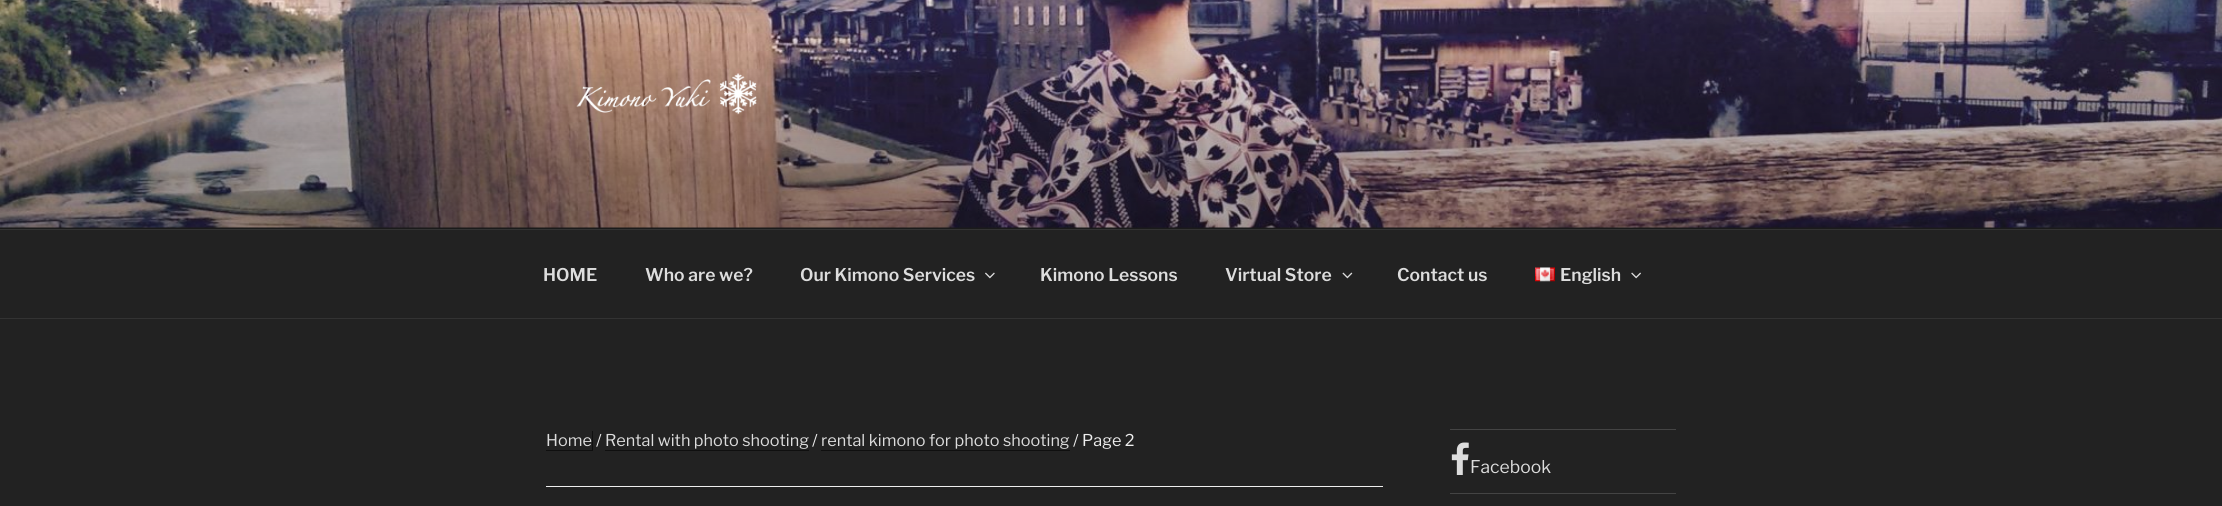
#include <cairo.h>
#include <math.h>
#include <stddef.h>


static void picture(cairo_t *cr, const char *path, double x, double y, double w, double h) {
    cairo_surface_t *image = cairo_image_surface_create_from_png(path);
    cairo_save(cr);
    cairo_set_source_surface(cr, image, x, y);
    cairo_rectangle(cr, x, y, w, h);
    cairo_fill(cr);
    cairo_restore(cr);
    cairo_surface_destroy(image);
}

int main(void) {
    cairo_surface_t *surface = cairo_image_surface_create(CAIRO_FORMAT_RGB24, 2222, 506);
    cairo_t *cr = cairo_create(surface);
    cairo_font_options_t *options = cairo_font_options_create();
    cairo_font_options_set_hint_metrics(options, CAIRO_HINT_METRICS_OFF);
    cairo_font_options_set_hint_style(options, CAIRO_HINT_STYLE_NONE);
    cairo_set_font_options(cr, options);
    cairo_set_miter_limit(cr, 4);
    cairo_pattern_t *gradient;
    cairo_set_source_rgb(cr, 0.133, 0.133, 0.133);
    cairo_paint(cr);
    cairo_set_source_rgb(cr, 0.149, 0.149, 0.149);
    cairo_rectangle(cr, 0, 227, 2222, 2);
    cairo_fill(cr);
    picture(cr, "img1.png", 0, 0, 2222, 228);
    gradient = cairo_pattern_create_linear(1111, 0, 1111, 229);
    cairo_pattern_add_color_stop_rgba(gradient, 0, 0, 0, 0, 0);
    cairo_pattern_add_color_stop_rgba(gradient, 0.75, 0, 0, 0, 0.3);
    cairo_pattern_add_color_stop_rgba(gradient, 1, 0, 0, 0, 0.3);
    cairo_set_source(cr, gradient);
    cairo_pattern_destroy(gradient);
    cairo_rectangle(cr, 0, 12, 2222, 217);
    cairo_fill(cr);
    picture(cr, "img2.png", 576, 73, 181, 42);
    cairo_set_source_rgb(cr, 0.2, 0.2, 0.2);
    cairo_rectangle(cr, 0, 229, 2222, 1);
    cairo_fill(cr);
    cairo_rectangle(cr, 0, 318, 2222, 1);
    cairo_fill(cr);
    cairo_select_font_face(cr, "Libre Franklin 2 Thin", CAIRO_FONT_SLANT_NORMAL, CAIRO_FONT_WEIGHT_NORMAL);
    cairo_set_font_size(cr, 17.5);
    cairo_set_source_rgb(cr, 0.867, 0.867, 0.867);
    cairo_move_to(cr, 543, 281);
    cairo_show_text(cr, "HOME");
    cairo_move_to(cr, 645, 281);
    cairo_show_text(cr, "Who are we?");
    cairo_move_to(cr, 800, 281);
    cairo_show_text(cr, "Our Kimono Services");
    picture(cr, "img3.png", 985, 272, 10, 7);
    cairo_move_to(cr, 1040, 281);
    cairo_show_text(cr, "Kimono Lessons");
    cairo_move_to(cr, 1225, 281);
    cairo_show_text(cr, "Virtual Store");
    picture(cr, "img4.png", 1342, 272, 11, 7);
    cairo_move_to(cr, 1397, 281);
    cairo_show_text(cr, "Contact us");
    picture(cr, "img5.png", 1535, 267, 20, 15);
    cairo_move_to(cr, 1560, 281);
    cairo_show_text(cr, "English");
    picture(cr, "img6.png", 1631, 272, 10, 7);
    cairo_set_source_rgb(cr, 0.933, 0.933, 0.933);
    cairo_rectangle(cr, 546, 486, 837, 1);
    cairo_fill(cr);
    cairo_set_source_rgb(cr, 0.059, 0.059, 0.059);
    cairo_new_path(cr);
    cairo_move_to(cr, 546, 431);
    cairo_line_to(cr, 546, 451);
    cairo_line_to(cr, 593, 451);
    cairo_line_to(cr, 593, 431);
    cairo_line_to(cr, 592, 431);
    cairo_line_to(cr, 592, 450);
    cairo_line_to(cr, 546, 450);
    cairo_close_path(cr);
    cairo_fill(cr);
    cairo_select_font_face(cr, "Libre Franklin Thin", CAIRO_FONT_SLANT_NORMAL, CAIRO_FONT_WEIGHT_NORMAL);
    cairo_set_font_size(cr, 16.25);
    cairo_set_source_rgb(cr, 0.867, 0.867, 0.867);
    cairo_move_to(cr, 546, 446);
    cairo_show_text(cr, "Home");
    cairo_set_source_rgb(cr, 0.933, 0.933, 0.933);
    cairo_move_to(cr, 596, 446);
    cairo_show_text(cr, "/");
    cairo_set_source_rgb(cr, 0.867, 0.867, 0.867);
    cairo_move_to(cr, 605, 446);
    cairo_show_text(cr, "Rental with photo shooting");
    cairo_set_source_rgb(cr, 0.059, 0.059, 0.059);
    cairo_new_path(cr);
    cairo_move_to(cr, 605, 450);
    cairo_line_to(cr, 605, 451);
    cairo_line_to(cr, 809, 451);
    cairo_line_to(cr, 809, 431);
    cairo_line_to(cr, 809, 450);
    cairo_close_path(cr);
    cairo_fill(cr);
    cairo_set_source_rgb(cr, 0.933, 0.933, 0.933);
    cairo_move_to(cr, 812, 446);
    cairo_show_text(cr, "/");
    cairo_set_source_rgb(cr, 0.867, 0.867, 0.867);
    cairo_move_to(cr, 821, 446);
    cairo_show_text(cr, "rental kimono for photo shooting");
    cairo_set_source_rgb(cr, 0.059, 0.059, 0.059);
    cairo_new_path(cr);
    cairo_move_to(cr, 821, 431);
    cairo_line_to(cr, 821, 451);
    cairo_line_to(cr, 1070, 451);
    cairo_line_to(cr, 1070, 450);
    cairo_line_to(cr, 821, 450);
    cairo_close_path(cr);
    cairo_fill(cr);
    cairo_set_source_rgb(cr, 0.933, 0.933, 0.933);
    cairo_move_to(cr, 1073, 446);
    cairo_show_text(cr, "/ Page 2");
    cairo_set_source_rgb(cr, 0.267, 0.267, 0.267);
    cairo_rectangle(cr, 1450, 429, 226, 1);
    cairo_fill(cr);
    cairo_rectangle(cr, 1450, 493, 226, 1);
    cairo_fill(cr);
    picture(cr, "img7.png", 1451, 442, 18, 33);
    cairo_set_font_size(cr, 17.5);
    cairo_set_source_rgb(cr, 0.867, 0.867, 0.867);
    cairo_move_to(cr, 1470, 473);
    cairo_show_text(cr, "Facebook");
    cairo_surface_write_to_png(surface, "page.png");
    cairo_font_options_destroy(options);
    cairo_destroy(cr);
    cairo_surface_destroy(surface);
    return 0;
}
